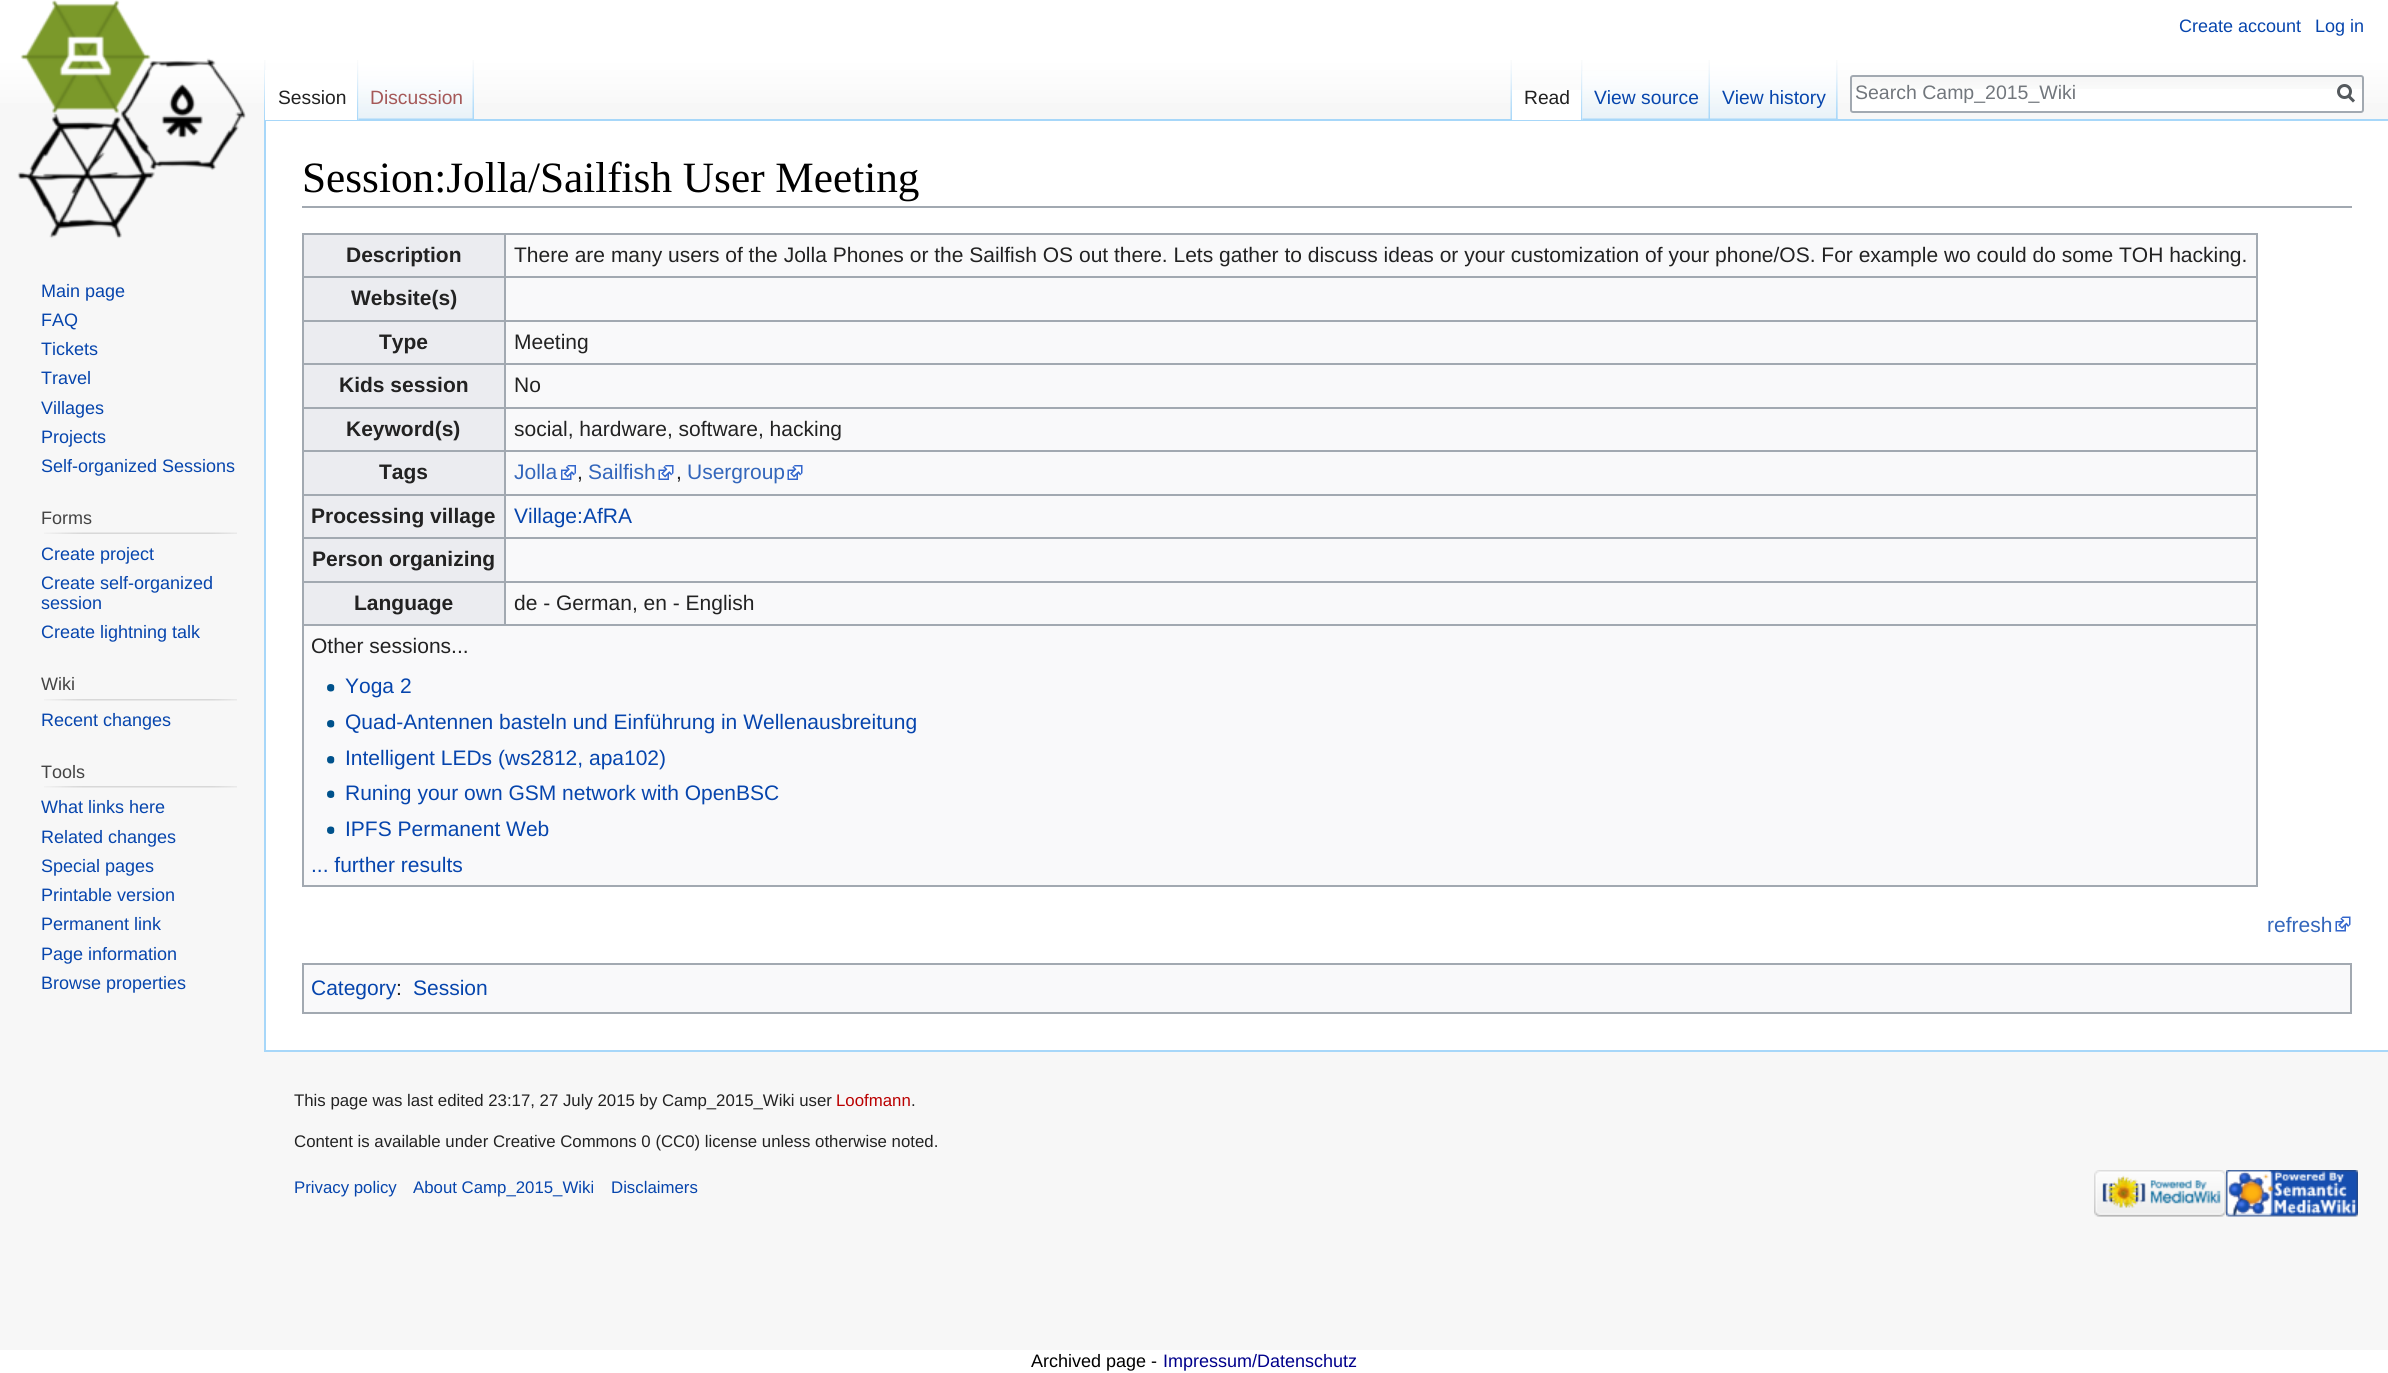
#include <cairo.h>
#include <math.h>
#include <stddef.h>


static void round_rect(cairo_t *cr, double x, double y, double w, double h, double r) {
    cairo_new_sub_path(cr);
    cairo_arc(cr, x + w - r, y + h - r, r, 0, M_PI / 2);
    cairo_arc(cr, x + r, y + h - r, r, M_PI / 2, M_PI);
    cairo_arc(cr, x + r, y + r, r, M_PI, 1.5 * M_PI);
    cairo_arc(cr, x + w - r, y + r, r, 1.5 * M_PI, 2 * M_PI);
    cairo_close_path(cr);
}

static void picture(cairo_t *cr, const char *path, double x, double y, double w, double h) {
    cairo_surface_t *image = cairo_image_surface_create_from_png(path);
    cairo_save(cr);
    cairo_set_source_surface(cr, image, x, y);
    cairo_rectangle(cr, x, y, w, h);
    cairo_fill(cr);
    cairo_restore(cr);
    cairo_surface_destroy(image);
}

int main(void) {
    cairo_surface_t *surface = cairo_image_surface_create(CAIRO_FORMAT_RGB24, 2388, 1373);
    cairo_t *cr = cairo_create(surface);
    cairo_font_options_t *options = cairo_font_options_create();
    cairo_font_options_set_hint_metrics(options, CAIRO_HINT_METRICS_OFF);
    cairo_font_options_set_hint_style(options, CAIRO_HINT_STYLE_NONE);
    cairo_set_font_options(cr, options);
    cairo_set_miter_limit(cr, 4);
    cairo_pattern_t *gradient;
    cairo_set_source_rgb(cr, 0.965, 0.965, 0.965);
    cairo_paint(cr);
    gradient = cairo_pattern_create_linear(1194, 0, 1194, 120);
    cairo_pattern_add_color_stop_rgba(gradient, 0.5, 1, 1, 1, 1);
    cairo_pattern_add_color_stop_rgba(gradient, 1, 0.965, 0.965, 0.965, 1);
    cairo_set_source(cr, gradient);
    cairo_pattern_destroy(gradient);
    cairo_rectangle(cr, 0, 0, 2388, 103);
    cairo_fill(cr);
    cairo_select_font_face(cr, "Liberation Sans", CAIRO_FONT_SLANT_NORMAL, CAIRO_FONT_WEIGHT_NORMAL);
    cairo_set_font_size(cr, 18);
    cairo_set_source_rgb(cr, 0.024, 0.271, 0.678);
    cairo_move_to(cr, 2179, 32);
    cairo_show_text(cr, "Create account");
    cairo_move_to(cr, 2315, 32);
    cairo_show_text(cr, "Log in");
    picture(cr, "img1.png", 264, 60, 2, 59);
    cairo_set_source_rgb(cr, 0.655, 0.843, 0.976);
    cairo_rectangle(cr, 264, 119, 2124, 2);
    cairo_fill(cr);
    cairo_rectangle(cr, 264, 1050, 2124, 2);
    cairo_fill(cr);
    cairo_rectangle(cr, 264, 119, 2, 933);
    cairo_fill(cr);
    cairo_set_source_rgb(cr, 1, 1, 1);
    cairo_rectangle(cr, 265, 70, 94, 50);
    cairo_fill(cr);
    picture(cr, "img2.png", 357, 60, 2, 60);
    cairo_set_font_size(cr, 19.25);
    cairo_set_source_rgb(cr, 0.133, 0.133, 0.133);
    cairo_move_to(cr, 278, 104);
    cairo_show_text(cr, "Session");
    picture(cr, "img3.png", 358, 60, 116, 60);
    picture(cr, "img4.png", 472, 60, 2, 59);
    cairo_set_source_rgb(cr, 0.647, 0.345, 0.345);
    cairo_move_to(cr, 370, 104);
    cairo_show_text(cr, "Discussion");
    picture(cr, "img5.png", 1510, 60, 2, 59);
    picture(cr, "img6.png", 1837, 60, 1, 59);
    cairo_set_source_rgb(cr, 1, 1, 1);
    cairo_rectangle(cr, 1512, 90, 71, 30);
    cairo_fill(cr);
    picture(cr, "img7.png", 1581, 60, 2, 60);
    cairo_set_source_rgb(cr, 0.133, 0.133, 0.133);
    cairo_move_to(cr, 1524, 104);
    cairo_show_text(cr, "Read");
    picture(cr, "img8.png", 1582, 71, 128, 49);
    picture(cr, "img9.png", 1708, 60, 2, 59);
    cairo_set_source_rgb(cr, 0.024, 0.271, 0.678);
    cairo_move_to(cr, 1594, 104);
    cairo_show_text(cr, "View source");
    picture(cr, "img10.png", 1710, 60, 128, 59);
    picture(cr, "img11.png", 1836, 60, 2, 59);
    cairo_move_to(cr, 1722, 104);
    cairo_show_text(cr, "View history");
    cairo_set_source_rgb(cr, 1, 1, 1);
    round_rect(cr, 1850, 75, 514, 38, 3);
    cairo_fill(cr);
    picture(cr, "img12.png", 1850, 76, 514, 13);
    round_rect(cr, 1851, 76, 512, 36, 2);
    cairo_set_source_rgb(cr, 0.635, 0.663, 0.694);
    cairo_stroke(cr);
    cairo_set_font_size(cr, 19.5);
    cairo_set_source_rgb(cr, 0.447, 0.467, 0.49);
    cairo_move_to(cr, 1855, 99);
    cairo_show_text(cr, "Search Camp_2015_Wiki");
    cairo_new_path(cr);
    cairo_move_to(cr, 2354, 101.5);
    cairo_line_to(cr, 2348, 95.5);
    cairo_set_source_rgb(cr, 0.329, 0.349, 0.365);
    cairo_set_line_width(cr, 3);
    cairo_stroke(cr);
    cairo_arc(cr, 2344.5, 91.5, 6, 0, 2 * M_PI);
    cairo_stroke(cr);
    picture(cr, "img13.png", 17, 0, 229, 239);
    cairo_set_font_size(cr, 18);
    cairo_set_source_rgb(cr, 0.024, 0.271, 0.678);
    cairo_move_to(cr, 41, 297);
    cairo_show_text(cr, "Main page");
    cairo_move_to(cr, 41, 326);
    cairo_show_text(cr, "FAQ");
    cairo_move_to(cr, 41, 355);
    cairo_show_text(cr, "Tickets");
    cairo_move_to(cr, 41, 384);
    cairo_show_text(cr, "Travel");
    cairo_move_to(cr, 41, 414);
    cairo_show_text(cr, "Villages");
    cairo_move_to(cr, 41, 443);
    cairo_show_text(cr, "Projects");
    cairo_move_to(cr, 41, 472);
    cairo_show_text(cr, "Self-organized Sessions");
    cairo_set_source_rgb(cr, 0.267, 0.267, 0.267);
    cairo_move_to(cr, 41, 524);
    cairo_show_text(cr, "Forms");
    picture(cr, "img14.png", 44, 532, 193, 2);
    cairo_set_source_rgb(cr, 0.024, 0.271, 0.678);
    cairo_move_to(cr, 41, 560);
    cairo_show_text(cr, "Create project");
    cairo_move_to(cr, 41, 589);
    cairo_show_text(cr, "Create self-organized");
    cairo_move_to(cr, 41, 609);
    cairo_show_text(cr, "session");
    cairo_move_to(cr, 41, 638);
    cairo_show_text(cr, "Create lightning talk");
    cairo_set_source_rgb(cr, 0.267, 0.267, 0.267);
    cairo_move_to(cr, 41, 690);
    cairo_show_text(cr, "Wiki");
    picture(cr, "img15.png", 44, 699, 193, 2);
    cairo_set_source_rgb(cr, 0.024, 0.271, 0.678);
    cairo_move_to(cr, 41, 726);
    cairo_show_text(cr, "Recent changes");
    cairo_set_source_rgb(cr, 0.267, 0.267, 0.267);
    cairo_move_to(cr, 41, 778);
    cairo_show_text(cr, "Tools");
    picture(cr, "img15.png", 44, 786, 193, 2);
    cairo_set_source_rgb(cr, 0.024, 0.271, 0.678);
    cairo_move_to(cr, 41, 813);
    cairo_show_text(cr, "What links here");
    cairo_move_to(cr, 41, 843);
    cairo_show_text(cr, "Related changes");
    cairo_move_to(cr, 41, 872);
    cairo_show_text(cr, "Special pages");
    cairo_move_to(cr, 41, 901);
    cairo_show_text(cr, "Printable version");
    cairo_move_to(cr, 41, 930);
    cairo_show_text(cr, "Permanent link");
    cairo_move_to(cr, 41, 960);
    cairo_show_text(cr, "Page information");
    cairo_move_to(cr, 41, 989);
    cairo_show_text(cr, "Browse properties");
    cairo_set_source_rgb(cr, 1, 1, 1);
    cairo_rectangle(cr, 266, 121, 2122, 929);
    cairo_fill(cr);
    cairo_set_source_rgb(cr, 0.635, 0.663, 0.694);
    cairo_rectangle(cr, 302, 206, 2050, 2);
    cairo_fill(cr);
    cairo_select_font_face(cr, "Liberation Serif", CAIRO_FONT_SLANT_NORMAL, CAIRO_FONT_WEIGHT_NORMAL);
    cairo_set_font_size(cr, 43.25);
    cairo_set_source_rgb(cr, 0, 0, 0);
    cairo_move_to(cr, 302, 192);
    cairo_show_text(cr, "Session:Jolla/Sailfish User Meeting");
    cairo_set_source_rgb(cr, 0.973, 0.976, 0.98);
    cairo_rectangle(cr, 304, 235, 1952, 650);
    cairo_fill(cr);
    cairo_set_source_rgb(cr, 0.635, 0.663, 0.694);
    cairo_rectangle(cr, 302, 233, 1956, 2);
    cairo_fill(cr);
    cairo_rectangle(cr, 2256, 233, 2, 654);
    cairo_fill(cr);
    cairo_rectangle(cr, 302, 885, 1956, 2);
    cairo_fill(cr);
    cairo_rectangle(cr, 302, 233, 2, 654);
    cairo_fill(cr);
    cairo_set_source_rgb(cr, 0.918, 0.925, 0.941);
    cairo_rectangle(cr, 304, 235, 200, 41);
    cairo_fill(cr);
    cairo_select_font_face(cr, "Liberation Sans", CAIRO_FONT_SLANT_NORMAL, CAIRO_FONT_WEIGHT_BOLD);
    cairo_set_font_size(cr, 21);
    cairo_set_source_rgb(cr, 0.133, 0.133, 0.133);
    cairo_move_to(cr, 346, 262);
    cairo_show_text(cr, "Description");
    cairo_set_source_rgb(cr, 0.635, 0.663, 0.694);
    cairo_rectangle(cr, 504, 276, 1754, 2);
    cairo_fill(cr);
    cairo_rectangle(cr, 504, 320, 1754, 2);
    cairo_fill(cr);
    cairo_rectangle(cr, 504, 363, 1754, 2);
    cairo_fill(cr);
    cairo_rectangle(cr, 504, 407, 1754, 2);
    cairo_fill(cr);
    cairo_rectangle(cr, 504, 450, 1754, 2);
    cairo_fill(cr);
    cairo_rectangle(cr, 504, 494, 1754, 2);
    cairo_fill(cr);
    cairo_rectangle(cr, 504, 537, 1754, 2);
    cairo_fill(cr);
    cairo_rectangle(cr, 504, 581, 1754, 2);
    cairo_fill(cr);
    cairo_rectangle(cr, 302, 624, 1956, 2);
    cairo_fill(cr);
    cairo_rectangle(cr, 504, 581, 2, 45);
    cairo_fill(cr);
    cairo_rectangle(cr, 302, 581, 204, 2);
    cairo_fill(cr);
    cairo_rectangle(cr, 504, 537, 2, 45);
    cairo_fill(cr);
    cairo_rectangle(cr, 302, 537, 204, 2);
    cairo_fill(cr);
    cairo_rectangle(cr, 504, 494, 2, 45);
    cairo_fill(cr);
    cairo_rectangle(cr, 302, 494, 204, 2);
    cairo_fill(cr);
    cairo_rectangle(cr, 504, 450, 2, 45);
    cairo_fill(cr);
    cairo_rectangle(cr, 302, 450, 204, 2);
    cairo_fill(cr);
    cairo_rectangle(cr, 504, 407, 2, 45);
    cairo_fill(cr);
    cairo_rectangle(cr, 302, 407, 204, 2);
    cairo_fill(cr);
    cairo_rectangle(cr, 504, 363, 2, 45);
    cairo_fill(cr);
    cairo_rectangle(cr, 302, 363, 204, 2);
    cairo_fill(cr);
    cairo_rectangle(cr, 504, 320, 2, 45);
    cairo_fill(cr);
    cairo_rectangle(cr, 302, 320, 204, 2);
    cairo_fill(cr);
    cairo_rectangle(cr, 504, 276, 2, 45);
    cairo_fill(cr);
    cairo_rectangle(cr, 302, 276, 204, 2);
    cairo_fill(cr);
    cairo_rectangle(cr, 504, 233, 2, 45);
    cairo_fill(cr);
    cairo_select_font_face(cr, "Liberation Sans", CAIRO_FONT_SLANT_NORMAL, CAIRO_FONT_WEIGHT_NORMAL);
    cairo_set_source_rgb(cr, 0.133, 0.133, 0.133);
    cairo_move_to(cr, 514, 262);
    cairo_show_text(cr, "There are many users of the Jolla Phones or the Sailfish OS out there. Lets gather to discuss ideas or your customization of your phone/OS. For example wo could do some TOH hacking.");
    cairo_set_source_rgb(cr, 0.918, 0.925, 0.941);
    cairo_rectangle(cr, 304, 278, 200, 42);
    cairo_fill(cr);
    cairo_select_font_face(cr, "Liberation Sans", CAIRO_FONT_SLANT_NORMAL, CAIRO_FONT_WEIGHT_BOLD);
    cairo_set_source_rgb(cr, 0.133, 0.133, 0.133);
    cairo_move_to(cr, 351, 305);
    cairo_show_text(cr, "Website(s)");
    cairo_set_source_rgb(cr, 0.918, 0.925, 0.941);
    cairo_rectangle(cr, 304, 322, 200, 41);
    cairo_fill(cr);
    cairo_set_source_rgb(cr, 0.133, 0.133, 0.133);
    cairo_move_to(cr, 379, 349);
    cairo_show_text(cr, "Type");
    cairo_select_font_face(cr, "Liberation Sans", CAIRO_FONT_SLANT_NORMAL, CAIRO_FONT_WEIGHT_NORMAL);
    cairo_move_to(cr, 514, 349);
    cairo_show_text(cr, "Meeting");
    cairo_set_source_rgb(cr, 0.918, 0.925, 0.941);
    cairo_rectangle(cr, 304, 365, 200, 42);
    cairo_fill(cr);
    cairo_select_font_face(cr, "Liberation Sans", CAIRO_FONT_SLANT_NORMAL, CAIRO_FONT_WEIGHT_BOLD);
    cairo_set_source_rgb(cr, 0.133, 0.133, 0.133);
    cairo_move_to(cr, 339, 392);
    cairo_show_text(cr, "Kids session");
    cairo_select_font_face(cr, "Liberation Sans", CAIRO_FONT_SLANT_NORMAL, CAIRO_FONT_WEIGHT_NORMAL);
    cairo_move_to(cr, 514, 392);
    cairo_show_text(cr, "No");
    cairo_set_source_rgb(cr, 0.918, 0.925, 0.941);
    cairo_rectangle(cr, 304, 409, 200, 41);
    cairo_fill(cr);
    cairo_select_font_face(cr, "Liberation Sans", CAIRO_FONT_SLANT_NORMAL, CAIRO_FONT_WEIGHT_BOLD);
    cairo_set_source_rgb(cr, 0.133, 0.133, 0.133);
    cairo_move_to(cr, 346, 436);
    cairo_show_text(cr, "Keyword(s)");
    cairo_select_font_face(cr, "Liberation Sans", CAIRO_FONT_SLANT_NORMAL, CAIRO_FONT_WEIGHT_NORMAL);
    cairo_move_to(cr, 514, 436);
    cairo_show_text(cr, "social, hardware, software, hacking");
    cairo_set_source_rgb(cr, 0.918, 0.925, 0.941);
    cairo_rectangle(cr, 304, 452, 200, 42);
    cairo_fill(cr);
    cairo_select_font_face(cr, "Liberation Sans", CAIRO_FONT_SLANT_NORMAL, CAIRO_FONT_WEIGHT_BOLD);
    cairo_set_source_rgb(cr, 0.133, 0.133, 0.133);
    cairo_move_to(cr, 379, 479);
    cairo_show_text(cr, "Tags");
    cairo_select_font_face(cr, "Liberation Sans", CAIRO_FONT_SLANT_NORMAL, CAIRO_FONT_WEIGHT_NORMAL);
    cairo_set_source_rgb(cr, 0.2, 0.4, 0.733);
    cairo_move_to(cr, 514, 479);
    cairo_show_text(cr, "Jolla");
    picture(cr, "img16.png", 561, 465, 15, 15);
    cairo_set_source_rgb(cr, 0.133, 0.133, 0.133);
    cairo_move_to(cr, 577, 479);
    cairo_show_text(cr, ",");
    cairo_set_source_rgb(cr, 0.2, 0.4, 0.733);
    cairo_move_to(cr, 588, 479);
    cairo_show_text(cr, "Sailfish");
    picture(cr, "img17.png", 658, 465, 16, 15);
    cairo_set_source_rgb(cr, 0.133, 0.133, 0.133);
    cairo_move_to(cr, 676, 479);
    cairo_show_text(cr, ",");
    cairo_set_source_rgb(cr, 0.2, 0.4, 0.733);
    cairo_move_to(cr, 687, 479);
    cairo_show_text(cr, "Usergroup");
    picture(cr, "img17.png", 787, 465, 16, 15);
    cairo_set_source_rgb(cr, 0.918, 0.925, 0.941);
    cairo_rectangle(cr, 304, 496, 200, 41);
    cairo_fill(cr);
    cairo_select_font_face(cr, "Liberation Sans", CAIRO_FONT_SLANT_NORMAL, CAIRO_FONT_WEIGHT_BOLD);
    cairo_set_source_rgb(cr, 0.133, 0.133, 0.133);
    cairo_move_to(cr, 311, 523);
    cairo_show_text(cr, "Processing village");
    cairo_select_font_face(cr, "Liberation Sans", CAIRO_FONT_SLANT_NORMAL, CAIRO_FONT_WEIGHT_NORMAL);
    cairo_set_source_rgb(cr, 0.024, 0.271, 0.678);
    cairo_move_to(cr, 514, 523);
    cairo_show_text(cr, "Village:AfRA");
    cairo_set_source_rgb(cr, 0.918, 0.925, 0.941);
    cairo_rectangle(cr, 304, 539, 200, 42);
    cairo_fill(cr);
    cairo_select_font_face(cr, "Liberation Sans", CAIRO_FONT_SLANT_NORMAL, CAIRO_FONT_WEIGHT_BOLD);
    cairo_set_source_rgb(cr, 0.133, 0.133, 0.133);
    cairo_move_to(cr, 312, 566);
    cairo_show_text(cr, "Person organizing");
    cairo_set_source_rgb(cr, 0.918, 0.925, 0.941);
    cairo_rectangle(cr, 304, 583, 200, 41);
    cairo_fill(cr);
    cairo_set_source_rgb(cr, 0.133, 0.133, 0.133);
    cairo_move_to(cr, 354, 610);
    cairo_show_text(cr, "Language");
    cairo_select_font_face(cr, "Liberation Sans", CAIRO_FONT_SLANT_NORMAL, CAIRO_FONT_WEIGHT_NORMAL);
    cairo_move_to(cr, 514, 610);
    cairo_show_text(cr, "de - German, en - English");
    cairo_move_to(cr, 311, 653);
    cairo_show_text(cr, "Other sessions...");
    picture(cr, "img18.png", 327, 684, 8, 8);
    cairo_set_source_rgb(cr, 0.024, 0.271, 0.678);
    cairo_move_to(cr, 345, 693);
    cairo_show_text(cr, "Yoga 2");
    picture(cr, "img18.png", 327, 720, 8, 8);
    cairo_move_to(cr, 345, 729);
    cairo_show_text(cr, "Quad-Antennen basteln und Einführung in Wellenausbreitung");
    picture(cr, "img19.png", 327, 756, 8, 8);
    cairo_move_to(cr, 345, 765);
    cairo_show_text(cr, "Intelligent LEDs (ws2812, apa102)");
    picture(cr, "img20.png", 327, 790, 8, 8);
    cairo_move_to(cr, 345, 800);
    cairo_show_text(cr, "Runing your own GSM network with OpenBSC");
    picture(cr, "img20.png", 327, 826, 8, 8);
    cairo_move_to(cr, 345, 836);
    cairo_show_text(cr, "IPFS Permanent Web");
    cairo_move_to(cr, 311, 872);
    cairo_show_text(cr, "... further results");
    cairo_set_source_rgb(cr, 0.2, 0.4, 0.733);
    cairo_move_to(cr, 2267, 932);
    cairo_show_text(cr, "refresh");
    picture(cr, "img21.png", 2335, 916, 16, 16);
    cairo_set_source_rgb(cr, 0.973, 0.976, 0.98);
    cairo_rectangle(cr, 303, 964, 2048, 49);
    cairo_fill_preserve(cr);
    cairo_set_source_rgb(cr, 0.635, 0.663, 0.694);
    cairo_set_line_width(cr, 2);
    cairo_stroke(cr);
    cairo_set_source_rgb(cr, 0.024, 0.271, 0.678);
    cairo_move_to(cr, 311, 995);
    cairo_show_text(cr, "Category");
    cairo_set_source_rgb(cr, 0.133, 0.133, 0.133);
    cairo_move_to(cr, 396, 995);
    cairo_show_text(cr, ":");
    cairo_set_source_rgb(cr, 0.024, 0.271, 0.678);
    cairo_move_to(cr, 413, 995);
    cairo_show_text(cr, "Session");
    cairo_set_font_size(cr, 16.8);
    cairo_set_source_rgb(cr, 0.133, 0.133, 0.133);
    cairo_move_to(cr, 294, 1106);
    cairo_show_text(cr, "This page was last edited 23:17, 27 July 2015 by Camp_2015_Wiki user");
    cairo_set_source_rgb(cr, 0.729, 0, 0);
    cairo_move_to(cr, 836, 1106);
    cairo_show_text(cr, "Loofmann");
    cairo_set_source_rgb(cr, 0.133, 0.133, 0.133);
    cairo_move_to(cr, 911, 1106);
    cairo_show_text(cr, ".");
    cairo_move_to(cr, 294, 1147);
    cairo_show_text(cr, "Content is available under Creative Commons 0 (CC0) license unless otherwise noted.");
    cairo_set_source_rgb(cr, 0.024, 0.271, 0.678);
    cairo_move_to(cr, 294, 1193);
    cairo_show_text(cr, "Privacy policy");
    cairo_move_to(cr, 413, 1193);
    cairo_show_text(cr, "About Camp_2015_Wiki");
    cairo_move_to(cr, 611, 1193);
    cairo_show_text(cr, "Disclaimers");
    picture(cr, "img22.png", 2094, 1170, 132, 47);
    picture(cr, "img23.png", 2226, 1170, 132, 47);
    cairo_set_source_rgb(cr, 1, 1, 1);
    cairo_rectangle(cr, 0, 1350, 2388, 23);
    cairo_fill(cr);
    cairo_set_font_size(cr, 18);
    cairo_set_source_rgb(cr, 0, 0, 0);
    cairo_move_to(cr, 1031, 1367);
    cairo_show_text(cr, "Archived page -");
    cairo_set_source_rgb(cr, 0, 0, 0.545);
    cairo_move_to(cr, 1163, 1367);
    cairo_show_text(cr, "Impressum/Datenschutz");
    cairo_surface_write_to_png(surface, "page.png");
    cairo_font_options_destroy(options);
    cairo_destroy(cr);
    cairo_surface_destroy(surface);
    return 0;
}
